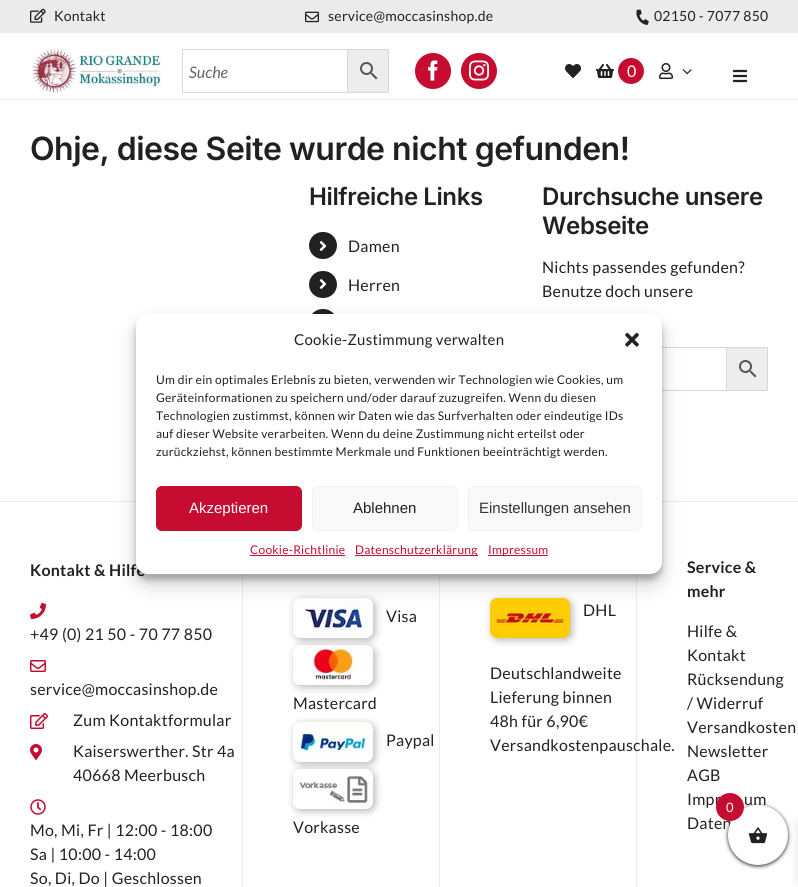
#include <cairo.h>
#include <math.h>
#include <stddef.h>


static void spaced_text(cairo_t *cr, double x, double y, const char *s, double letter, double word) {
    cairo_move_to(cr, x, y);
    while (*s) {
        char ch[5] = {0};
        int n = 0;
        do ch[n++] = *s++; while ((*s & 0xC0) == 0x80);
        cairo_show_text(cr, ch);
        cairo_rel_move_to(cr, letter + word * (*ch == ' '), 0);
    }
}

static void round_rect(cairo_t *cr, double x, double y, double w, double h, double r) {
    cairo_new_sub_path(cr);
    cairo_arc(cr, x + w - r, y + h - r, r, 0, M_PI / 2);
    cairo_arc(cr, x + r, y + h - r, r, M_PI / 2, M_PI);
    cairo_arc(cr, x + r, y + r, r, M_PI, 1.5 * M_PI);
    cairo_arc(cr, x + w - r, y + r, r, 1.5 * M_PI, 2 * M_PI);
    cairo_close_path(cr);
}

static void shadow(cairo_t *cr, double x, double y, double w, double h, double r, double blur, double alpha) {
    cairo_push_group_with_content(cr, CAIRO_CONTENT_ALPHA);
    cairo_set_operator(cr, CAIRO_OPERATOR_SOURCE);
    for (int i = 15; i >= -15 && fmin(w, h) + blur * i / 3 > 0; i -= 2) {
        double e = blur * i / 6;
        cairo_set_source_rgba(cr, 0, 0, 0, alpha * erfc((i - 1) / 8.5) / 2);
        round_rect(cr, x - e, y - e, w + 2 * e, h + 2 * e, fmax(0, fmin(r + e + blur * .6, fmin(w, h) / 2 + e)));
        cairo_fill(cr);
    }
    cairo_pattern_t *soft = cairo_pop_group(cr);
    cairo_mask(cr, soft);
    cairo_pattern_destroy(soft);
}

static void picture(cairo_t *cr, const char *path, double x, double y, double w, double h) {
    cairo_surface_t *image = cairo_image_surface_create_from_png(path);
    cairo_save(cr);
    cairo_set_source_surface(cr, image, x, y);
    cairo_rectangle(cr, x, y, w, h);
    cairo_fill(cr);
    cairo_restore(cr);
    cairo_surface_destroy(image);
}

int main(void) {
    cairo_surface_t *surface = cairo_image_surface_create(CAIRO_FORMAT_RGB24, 798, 887);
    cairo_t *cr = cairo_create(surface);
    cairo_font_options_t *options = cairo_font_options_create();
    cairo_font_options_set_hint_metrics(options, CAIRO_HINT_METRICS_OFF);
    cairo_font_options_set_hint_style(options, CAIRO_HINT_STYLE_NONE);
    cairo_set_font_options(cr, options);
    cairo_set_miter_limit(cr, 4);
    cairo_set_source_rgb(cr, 1, 1, 1);
    cairo_paint(cr);
    cairo_set_source_rgb(cr, 0.918, 0.918, 0.918);
    cairo_rectangle(cr, 0, 0, 798, 33);
    cairo_fill(cr);
    picture(cr, "img1.png", 30, 8, 16, 15);
    cairo_select_font_face(cr, "Lato", CAIRO_FONT_SLANT_NORMAL, CAIRO_FONT_WEIGHT_NORMAL);
    cairo_set_font_size(cr, 14);
    cairo_set_source_rgb(cr, 0.129, 0.129, 0.129);
    spaced_text(cr, 54, 21, "Kontakt", 0.25, 0);
    picture(cr, "img2.png", 305, 11, 14, 12);
    spaced_text(cr, 328, 21, "service@moccasinshop.de", 0.25, 0);
    picture(cr, "img3.png", 636, 9, 13, 16);
    spaced_text(cr, 654, 21, "02150 - 7077 850", 0.25, 0);
    cairo_set_source_rgb(cr, 0.918, 0.918, 0.918);
    cairo_rectangle(cr, 0, 99, 798, 1);
    cairo_fill(cr);
    picture(cr, "img4.png", 32, 48, 130, 46);
    cairo_set_source_rgb(cr, 0.929, 0.929, 0.929);
    cairo_rectangle(cr, 347.5, 49.5, 41, 43);
    cairo_fill_preserve(cr);
    cairo_set_source_rgb(cr, 0.847, 0.847, 0.847);
    cairo_set_line_width(cr, 1);
    cairo_stroke(cr);
    cairo_rectangle(cr, 182.5, 49.5, 165, 43);
    cairo_stroke(cr);
    cairo_select_font_face(cr, "Lato", CAIRO_FONT_SLANT_ITALIC, CAIRO_FONT_WEIGHT_NORMAL);
    cairo_set_font_size(cr, 16);
    cairo_set_source_rgb(cr, 0.4, 0.4, 0.4);
    cairo_move_to(cr, 189, 78);
    cairo_show_text(cr, "Suche");
    picture(cr, "img5.png", 360, 62, 18, 18);
    cairo_set_source_rgb(cr, 0.776, 0.047, 0.188);
    cairo_arc(cr, 433, 71, 18, 0, 2 * M_PI);
    cairo_fill(cr);
    picture(cr, "img6.png", 428, 60, 10, 21);
    cairo_arc(cr, 479, 71, 18, 0, 2 * M_PI);
    cairo_fill(cr);
    picture(cr, "img7.png", 469, 60, 20, 21);
    picture(cr, "img8.png", 565, 64, 16, 14);
    picture(cr, "img9.png", 596, 64, 18, 14);
    cairo_arc(cr, 631, 71, 13, 0, 2 * M_PI);
    cairo_fill(cr);
    cairo_select_font_face(cr, "Lato", CAIRO_FONT_SLANT_NORMAL, CAIRO_FONT_WEIGHT_NORMAL);
    cairo_set_source_rgb(cr, 1, 1, 1);
    spaced_text(cr, 627, 77, "0", 0.25, 0);
    picture(cr, "img10.png", 659, 63, 14, 16);
    picture(cr, "img11.png", 682, 69, 10, 6);
    picture(cr, "img12.png", 733, 69, 14, 14);
    cairo_select_font_face(cr, "Inter SemiBold", CAIRO_FONT_SLANT_NORMAL, CAIRO_FONT_WEIGHT_NORMAL);
    cairo_set_font_size(cr, 32);
    cairo_set_source_rgb(cr, 0.129, 0.129, 0.129);
    spaced_text(cr, 30, 160, "Ohje, diese Seite wurde nicht gefunden!", -0.5, 0);
    cairo_set_font_size(cr, 24);
    spaced_text(cr, 309, 205, "Hilfreiche Links", -0.4, 0);
    round_rect(cr, 309, 232, 28, 27, 13.5);
    cairo_fill(cr);
    picture(cr, "img13.png", 319, 241, 8, 10);
    cairo_select_font_face(cr, "Lato", CAIRO_FONT_SLANT_NORMAL, CAIRO_FONT_WEIGHT_NORMAL);
    cairo_set_font_size(cr, 16);
    spaced_text(cr, 348, 252, "Damen", 0.25, 0);
    round_rect(cr, 309, 271, 28, 27, 13.5);
    cairo_fill(cr);
    picture(cr, "img13.png", 319, 279, 8, 10);
    spaced_text(cr, 348, 291, "Herren", 0.25, 0);
    round_rect(cr, 309, 309, 28, 27, 13.5);
    cairo_fill(cr);
    cairo_select_font_face(cr, "Inter SemiBold", CAIRO_FONT_SLANT_NORMAL, CAIRO_FONT_WEIGHT_NORMAL);
    cairo_set_font_size(cr, 24);
    spaced_text(cr, 542, 205, "Durchsuche unsere", -0.4, 0);
    spaced_text(cr, 542, 234, "Webseite", -0.4, 0);
    cairo_select_font_face(cr, "Lato", CAIRO_FONT_SLANT_NORMAL, CAIRO_FONT_WEIGHT_NORMAL);
    cairo_set_font_size(cr, 16);
    spaced_text(cr, 542, 273, "Nichts passendes gefunden?", 0.25, 0);
    spaced_text(cr, 542, 297, "Benutze doch unsere", 0.25, 0);
    cairo_set_source_rgb(cr, 0.929, 0.929, 0.929);
    cairo_rectangle(cr, 726.5, 347.5, 41, 43);
    cairo_fill_preserve(cr);
    cairo_set_source_rgb(cr, 0.847, 0.847, 0.847);
    cairo_stroke(cr);
    cairo_rectangle(cr, 542.5, 347.5, 184, 43);
    cairo_stroke(cr);
    picture(cr, "img5.png", 739, 360, 18, 18);
    cairo_set_source_rgb(cr, 0.918, 0.918, 0.918);
    cairo_rectangle(cr, 0, 501, 798, 1);
    cairo_fill(cr);
    cairo_rectangle(cr, 242, 574, 1, 313);
    cairo_fill(cr);
    cairo_select_font_face(cr, "Lato", CAIRO_FONT_SLANT_NORMAL, CAIRO_FONT_WEIGHT_BOLD);
    cairo_set_source_rgb(cr, 0.129, 0.129, 0.129);
    spaced_text(cr, 30, 576, "Kontakt & Hilfe", 0.25, 0);
    picture(cr, "img14.png", 30, 603, 16, 16);
    cairo_select_font_face(cr, "Lato", CAIRO_FONT_SLANT_NORMAL, CAIRO_FONT_WEIGHT_NORMAL);
    spaced_text(cr, 30, 640, "+49 (0) 21 50 - 70 77 850", 0.25, 0);
    picture(cr, "img15.png", 30, 660, 16, 12);
    spaced_text(cr, 30, 695, "service@moccasinshop.de", 0.25, 0);
    picture(cr, "img16.png", 30, 713, 18, 16);
    spaced_text(cr, 73, 726, "Zum Kontaktformular", 0.25, 0);
    picture(cr, "img17.png", 30, 744, 12, 16);
    spaced_text(cr, 73, 757, "Kaiserswerther. Str 4a", 0.25, 0);
    spaced_text(cr, 73, 781, "40668 Meerbusch", 0.25, 0);
    picture(cr, "img18.png", 30, 799, 16, 16);
    spaced_text(cr, 30, 836, "Mo, Mi, Fr | 12:00 - 18:00", 0.25, 0);
    spaced_text(cr, 30, 860, "Sa | 10:00 - 14:00", 0.25, 0);
    spaced_text(cr, 30, 884, "So, Di, Do | Geschlossen", 0.25, 0);
    cairo_set_source_rgb(cr, 0.918, 0.918, 0.918);
    cairo_rectangle(cr, 439, 574, 1, 313);
    cairo_fill(cr);
    cairo_set_source_rgb(cr, 0, 0, 0);
    shadow(cr, 295, 600, 80, 40, 7, 4, 0.3);
    picture(cr, "img19.png", 293, 598, 80, 40);
    cairo_set_source_rgb(cr, 0.129, 0.129, 0.129);
    spaced_text(cr, 386, 622, "Visa", 0.25, 0);
    cairo_set_source_rgb(cr, 0, 0, 0);
    shadow(cr, 295, 647, 80, 40, 7, 4, 0.3);
    picture(cr, "img20.png", 293, 645, 80, 40);
    cairo_set_source_rgb(cr, 0.129, 0.129, 0.129);
    spaced_text(cr, 293, 709, "Mastercard", 0.25, 0);
    cairo_set_source_rgb(cr, 0, 0, 0);
    shadow(cr, 295, 724, 80, 40, 7, 4, 0.3);
    picture(cr, "img21.png", 293, 722, 80, 40);
    cairo_set_source_rgb(cr, 0.129, 0.129, 0.129);
    spaced_text(cr, 386, 746, "Paypal", 0.25, 0);
    cairo_set_source_rgb(cr, 0, 0, 0);
    shadow(cr, 295, 771, 80, 40, 7, 4, 0.3);
    picture(cr, "img22.png", 293, 769, 80, 40);
    cairo_set_source_rgb(cr, 0.129, 0.129, 0.129);
    spaced_text(cr, 293, 833, "Vorkasse", 0.25, 0);
    cairo_set_source_rgb(cr, 0.918, 0.918, 0.918);
    cairo_rectangle(cr, 636, 574, 1, 313);
    cairo_fill(cr);
    cairo_set_source_rgb(cr, 0, 0, 0);
    shadow(cr, 492, 600, 80, 40, 7, 4, 0.3);
    picture(cr, "img23.png", 490, 598, 80, 40);
    cairo_set_source_rgb(cr, 0.129, 0.129, 0.129);
    spaced_text(cr, 583, 616, "DHL", 0.25, 0);
    spaced_text(cr, 490, 679, "Deutschlandweite", 0.25, 0);
    spaced_text(cr, 490, 703, "Lieferung binnen", 0.25, 0);
    spaced_text(cr, 490, 727, "48h für 6,90€", 0.25, 0);
    spaced_text(cr, 490, 751, "Versandkostenpauschale.", 0.25, 0);
    cairo_select_font_face(cr, "Lato", CAIRO_FONT_SLANT_NORMAL, CAIRO_FONT_WEIGHT_BOLD);
    spaced_text(cr, 687, 573, "Service &", 0.25, 0);
    spaced_text(cr, 687, 597, "mehr", 0.25, 0);
    cairo_select_font_face(cr, "Lato", CAIRO_FONT_SLANT_NORMAL, CAIRO_FONT_WEIGHT_NORMAL);
    spaced_text(cr, 687, 637, "Hilfe &", 0.25, 0);
    spaced_text(cr, 687, 661, "Kontakt", 0.25, 0);
    spaced_text(cr, 687, 685, "Rücksendung", 0.25, 0);
    spaced_text(cr, 687, 709, "/ Widerruf", 0.25, 0);
    spaced_text(cr, 687, 733, "Versandkosten", 0.25, 0);
    spaced_text(cr, 687, 757, "Newsletter", 0.25, 0);
    spaced_text(cr, 687, 781, "AGB", 0.25, 0);
    spaced_text(cr, 687, 805, "Impr", 0.25, 0);
    spaced_text(cr, 744, 805, "um", 0.25, 0);
    spaced_text(cr, 687, 829, "Daten", 0.25, 0);
    cairo_set_source_rgb(cr, 0, 0, 0);
    shadow(cr, 136, 320, 526, 260, 12, 3, 0.23);
    shadow(cr, 136, 324, 526, 260, 12, 10, 0.19);
    cairo_set_source_rgb(cr, 1, 1, 1);
    round_rect(cr, 136, 314, 526, 260, 12);
    cairo_fill(cr);
    cairo_set_font_size(cr, 15);
    cairo_set_source_rgb(cr, 0.129, 0.129, 0.129);
    spaced_text(cr, 294, 345, "Cookie-Zustimmung verwalten", 0.25, 0);
    picture(cr, "img24.png", 625, 332, 14, 15);
    cairo_set_font_size(cr, 12);
    spaced_text(cr, 156, 384, "Um dir ein optimales Erlebnis zu bieten, verwenden wir Technologien wie Cookies, um", 0.25, 0);
    spaced_text(cr, 156, 402, "Geräteinformationen zu speichern und/oder darauf zuzugreifen. Wenn du diesen", 0.25, 0);
    spaced_text(cr, 156, 420, "Technologien zustimmst, können wir Daten wie das Surfverhalten oder eindeutige IDs", 0.25, 0);
    spaced_text(cr, 156, 438, "auf dieser Website verarbeiten. Wenn du deine Zustimmung nicht erteilst oder", 0.25, 0);
    spaced_text(cr, 156, 456, "zurückziehst, können bestimmte Merkmale und Funktionen beeinträchtigt werden.", 0.25, 0);
    cairo_set_source_rgb(cr, 0.776, 0.047, 0.188);
    round_rect(cr, 156.5, 486.5, 145, 44, 5.5);
    cairo_fill_preserve(cr);
    cairo_stroke(cr);
    cairo_select_font_face(cr, "Liberation Sans", CAIRO_FONT_SLANT_NORMAL, CAIRO_FONT_WEIGHT_NORMAL);
    cairo_set_font_size(cr, 15);
    cairo_set_source_rgb(cr, 1, 1, 1);
    cairo_move_to(cr, 189, 513);
    cairo_show_text(cr, "Akzeptieren");
    cairo_set_source_rgb(cr, 0.976, 0.976, 0.976);
    round_rect(cr, 312.5, 486.5, 145, 44, 5.5);
    cairo_fill_preserve(cr);
    cairo_set_source_rgb(cr, 0.949, 0.949, 0.949);
    cairo_stroke(cr);
    cairo_set_source_rgb(cr, 0.129, 0.129, 0.129);
    cairo_move_to(cr, 353, 513);
    cairo_show_text(cr, "Ablehnen");
    cairo_set_source_rgb(cr, 0.976, 0.976, 0.976);
    round_rect(cr, 468.5, 486.5, 173, 44, 5.5);
    cairo_fill_preserve(cr);
    cairo_set_source_rgb(cr, 0.949, 0.949, 0.949);
    cairo_stroke(cr);
    cairo_set_source_rgb(cr, 0.2, 0.2, 0.2);
    cairo_move_to(cr, 479, 513);
    cairo_show_text(cr, "Einstellungen ansehen");
    cairo_select_font_face(cr, "Lato", CAIRO_FONT_SLANT_NORMAL, CAIRO_FONT_WEIGHT_NORMAL);
    cairo_set_font_size(cr, 12);
    cairo_set_source_rgb(cr, 0.776, 0.047, 0.188);
    spaced_text(cr, 250, 554, "Cookie-Richtlinie", 0.25, 0);
    cairo_rectangle(cr, 250, 555, 95, 1);
    cairo_fill(cr);
    cairo_rectangle(cr, 355, 555, 123, 1);
    cairo_fill(cr);
    spaced_text(cr, 355, 554, "Datenschutzerklärung", 0.25, 0);
    cairo_rectangle(cr, 488, 555, 60, 1);
    cairo_fill(cr);
    spaced_text(cr, 488, 554, "Impressum", 0.25, 0);
    cairo_set_source_rgb(cr, 0.129, 0.129, 0.129);
    shadow(cr, 728, 806, 60, 60, 30, 2, 1);
    cairo_set_source_rgb(cr, 0, 0, 0);
    shadow(cr, 798, 821, 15, 61, 0, 5, 0.1);
    cairo_set_source_rgb(cr, 1, 1, 1);
    cairo_arc(cr, 758, 835, 30, 0, 2 * M_PI);
    cairo_fill(cr);
    cairo_set_source_rgb(cr, 0.776, 0.047, 0.188);
    cairo_arc(cr, 730, 807, 14, 0, 2 * M_PI);
    cairo_fill(cr);
    cairo_set_font_size(cr, 13);
    cairo_set_source_rgb(cr, 1, 1, 1);
    spaced_text(cr, 726, 812, "0", 0.25, 0);
    picture(cr, "img25.png", 748, 827, 20, 17);
    cairo_surface_write_to_png(surface, "page.png");
    cairo_font_options_destroy(options);
    cairo_destroy(cr);
    cairo_surface_destroy(surface);
    return 0;
}
